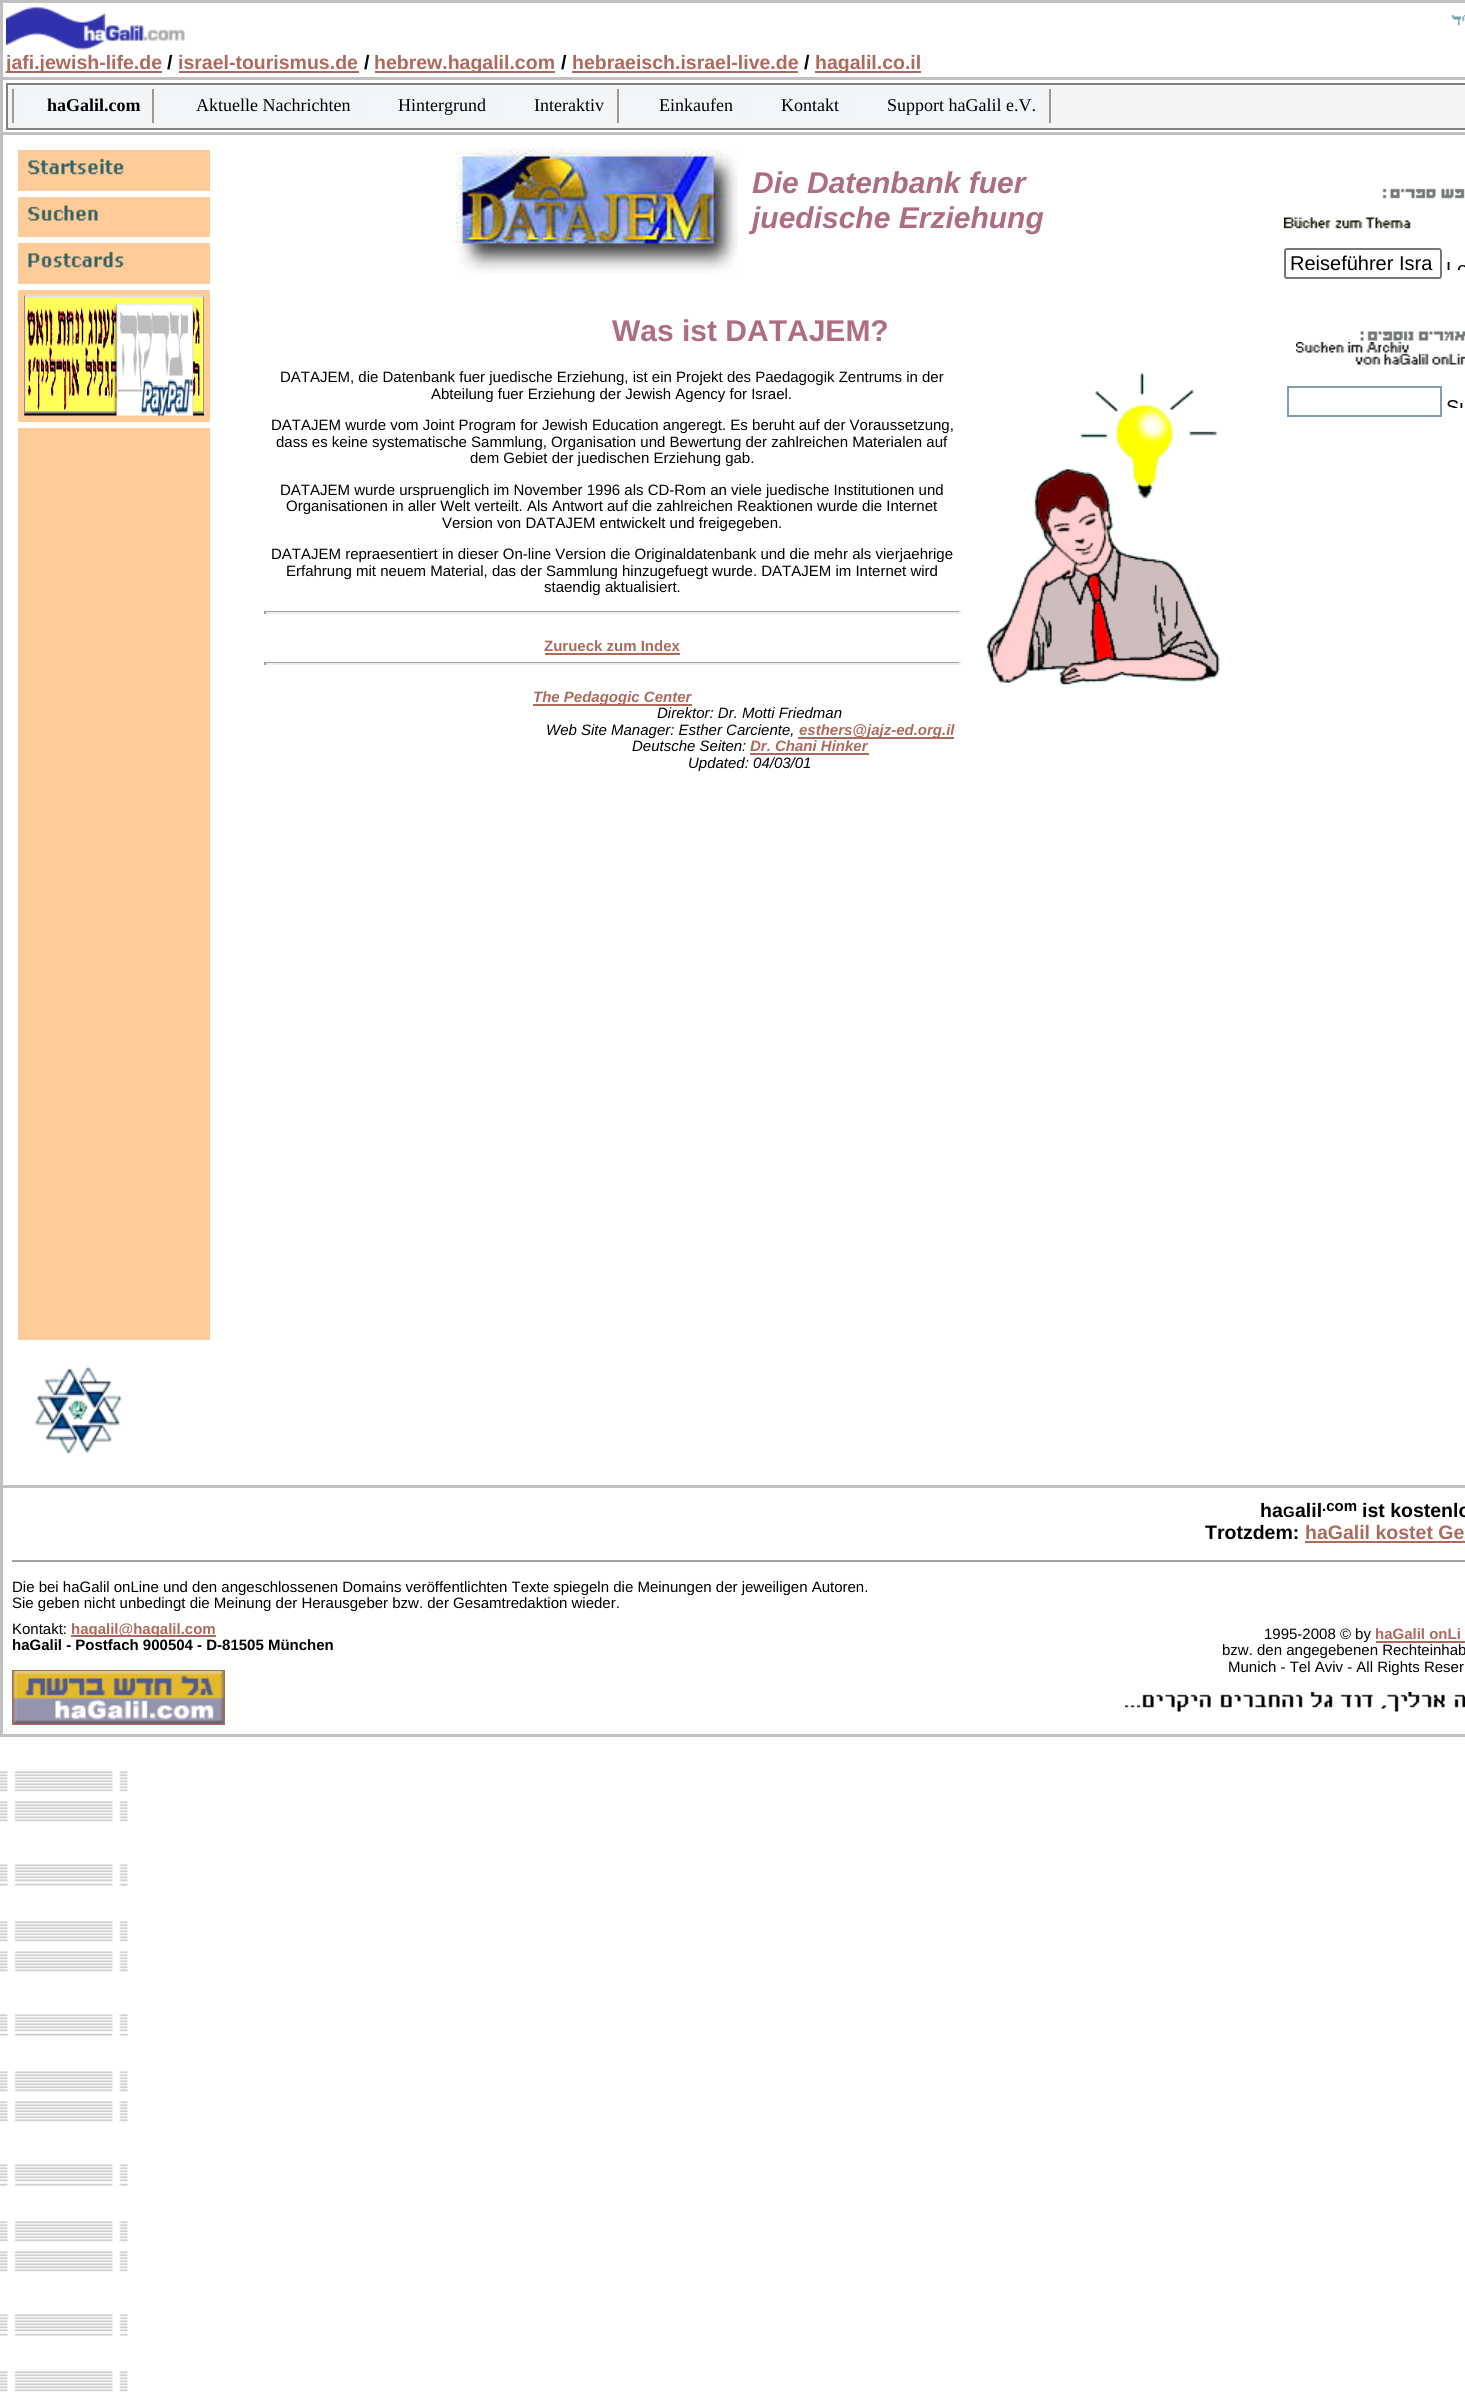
#include <cairo.h>
#include <math.h>
#include <stddef.h>


static void round_rect(cairo_t *cr, double x, double y, double w, double h, double r) {
    cairo_new_sub_path(cr);
    cairo_arc(cr, x + w - r, y + h - r, r, 0, M_PI / 2);
    cairo_arc(cr, x + r, y + h - r, r, M_PI / 2, M_PI);
    cairo_arc(cr, x + r, y + r, r, M_PI, 1.5 * M_PI);
    cairo_arc(cr, x + w - r, y + r, r, 1.5 * M_PI, 2 * M_PI);
    cairo_close_path(cr);
}

static void picture(cairo_t *cr, const char *path, double x, double y, double w, double h) {
    cairo_surface_t *image = cairo_image_surface_create_from_png(path);
    cairo_save(cr);
    cairo_set_source_surface(cr, image, x, y);
    cairo_rectangle(cr, x, y, w, h);
    cairo_fill(cr);
    cairo_restore(cr);
    cairo_surface_destroy(image);
}

int main(void) {
    cairo_surface_t *surface = cairo_image_surface_create(CAIRO_FORMAT_RGB24, 1465, 2399);
    cairo_t *cr = cairo_create(surface);
    cairo_font_options_t *options = cairo_font_options_create();
    cairo_font_options_set_hint_metrics(options, CAIRO_HINT_METRICS_OFF);
    cairo_font_options_set_hint_style(options, CAIRO_HINT_STYLE_NONE);
    cairo_set_font_options(cr, options);
    cairo_set_miter_limit(cr, 4);
    cairo_set_source_rgb(cr, 1, 1, 1);
    cairo_paint(cr);
    picture(cr, "img1.png", 0, 1737, 1465, 662);
    cairo_set_source_rgb(cr, 0.753, 0.753, 0.753);
    cairo_rectangle(cr, 0, 0, 1465, 1737);
    cairo_fill(cr);
    cairo_set_source_rgb(cr, 1, 1, 1);
    cairo_rectangle(cr, 3, 3, 1462, 74);
    cairo_fill(cr);
    picture(cr, "img2.png", 1451, 15, 14, 11);
    picture(cr, "img3.png", 6, 6, 179, 44);
    cairo_set_source_rgb(cr, 0.678, 0.416, 0.357);
    cairo_rectangle(cr, 6, 71, 156, 2);
    cairo_fill(cr);
    cairo_select_font_face(cr, "Liberation Sans", CAIRO_FONT_SLANT_NORMAL, CAIRO_FONT_WEIGHT_BOLD);
    cairo_set_font_size(cr, 19.5);
    cairo_move_to(cr, 6, 69);
    cairo_show_text(cr, "jafi.jewish-life.de");
    cairo_set_source_rgb(cr, 0, 0, 0);
    cairo_move_to(cr, 167, 69);
    cairo_show_text(cr, "/");
    cairo_set_source_rgb(cr, 0.678, 0.416, 0.357);
    cairo_move_to(cr, 178, 69);
    cairo_show_text(cr, "israel-tourismus.de");
    cairo_rectangle(cr, 179, 71, 180, 2);
    cairo_fill(cr);
    cairo_set_source_rgb(cr, 0, 0, 0);
    cairo_move_to(cr, 364, 69);
    cairo_show_text(cr, "/");
    cairo_set_source_rgb(cr, 0.678, 0.416, 0.357);
    cairo_rectangle(cr, 375, 71, 180, 2);
    cairo_fill(cr);
    cairo_move_to(cr, 374, 69);
    cairo_show_text(cr, "hebrew.hagalil.com");
    cairo_set_source_rgb(cr, 0, 0, 0);
    cairo_move_to(cr, 561, 69);
    cairo_show_text(cr, "/");
    cairo_set_source_rgb(cr, 0.678, 0.416, 0.357);
    cairo_move_to(cr, 572, 69);
    cairo_show_text(cr, "hebraeisch.israel-live.de");
    cairo_rectangle(cr, 572, 71, 226, 2);
    cairo_fill(cr);
    cairo_set_source_rgb(cr, 0, 0, 0);
    cairo_move_to(cr, 804, 69);
    cairo_show_text(cr, "/");
    cairo_set_source_rgb(cr, 0.678, 0.416, 0.357);
    cairo_rectangle(cr, 815, 71, 106, 2);
    cairo_fill(cr);
    cairo_move_to(cr, 815, 69);
    cairo_show_text(cr, "hagalil.co.il");
    cairo_set_source_rgb(cr, 1, 1, 1);
    cairo_rectangle(cr, 3, 80, 1462, 52);
    cairo_fill(cr);
    cairo_set_source_rgb(cr, 0.502, 0.502, 0.502);
    cairo_rectangle(cr, 6, 83, 1459, 2);
    cairo_fill(cr);
    cairo_rectangle(cr, 6, 128, 1459, 2);
    cairo_fill(cr);
    cairo_rectangle(cr, 6, 83, 2, 46);
    cairo_fill(cr);
    cairo_set_source_rgb(cr, 0.957, 0.957, 0.957);
    cairo_rectangle(cr, 8, 85, 1457, 43);
    cairo_fill(cr);
    cairo_set_source_rgb(cr, 0.6, 0.6, 0.6);
    cairo_rectangle(cr, 12, 89, 2, 34);
    cairo_fill(cr);
    cairo_set_source_rgb(cr, 0.949, 0.961, 0.969);
    cairo_rectangle(cr, 20, 89, 126, 34);
    cairo_fill(cr);
    cairo_select_font_face(cr, "Liberation Serif", CAIRO_FONT_SLANT_NORMAL, CAIRO_FONT_WEIGHT_BOLD);
    cairo_set_font_size(cr, 18);
    cairo_set_source_rgb(cr, 0, 0, 0);
    cairo_move_to(cr, 47, 111);
    cairo_show_text(cr, "haGalil.com");
    cairo_set_source_rgb(cr, 0.6, 0.6, 0.6);
    cairo_rectangle(cr, 152, 89, 2, 34);
    cairo_fill(cr);
    cairo_set_source_rgb(cr, 0.949, 0.961, 0.969);
    cairo_rectangle(cr, 159, 89, 197, 34);
    cairo_fill(cr);
    cairo_select_font_face(cr, "Liberation Serif", CAIRO_FONT_SLANT_NORMAL, CAIRO_FONT_WEIGHT_NORMAL);
    cairo_set_source_rgb(cr, 0, 0, 0);
    cairo_move_to(cr, 196, 111);
    cairo_show_text(cr, "Aktuelle Nachrichten");
    cairo_set_source_rgb(cr, 0.949, 0.961, 0.969);
    cairo_rectangle(cr, 362, 89, 130, 34);
    cairo_fill(cr);
    cairo_set_source_rgb(cr, 0, 0, 0);
    cairo_move_to(cr, 398, 111);
    cairo_show_text(cr, "Hintergrund");
    cairo_set_source_rgb(cr, 0.949, 0.961, 0.969);
    cairo_rectangle(cr, 498, 89, 113, 34);
    cairo_fill(cr);
    cairo_set_source_rgb(cr, 0, 0, 0);
    cairo_move_to(cr, 534, 111);
    cairo_show_text(cr, "Interaktiv");
    cairo_set_source_rgb(cr, 0.6, 0.6, 0.6);
    cairo_rectangle(cr, 617, 89, 2, 34);
    cairo_fill(cr);
    cairo_set_source_rgb(cr, 0.949, 0.961, 0.969);
    cairo_rectangle(cr, 624, 89, 116, 34);
    cairo_fill(cr);
    cairo_set_source_rgb(cr, 0, 0, 0);
    cairo_move_to(cr, 659, 111);
    cairo_show_text(cr, "Einkaufen");
    cairo_set_source_rgb(cr, 0.949, 0.961, 0.969);
    cairo_rectangle(cr, 746, 89, 100, 34);
    cairo_fill(cr);
    cairo_set_source_rgb(cr, 0, 0, 0);
    cairo_move_to(cr, 781, 111);
    cairo_show_text(cr, "Kontakt");
    cairo_set_source_rgb(cr, 0.949, 0.961, 0.969);
    cairo_rectangle(cr, 852, 89, 191, 34);
    cairo_fill(cr);
    cairo_set_source_rgb(cr, 0, 0, 0);
    cairo_move_to(cr, 887, 111);
    cairo_show_text(cr, "Support haGalil e.V.");
    cairo_set_source_rgb(cr, 0.6, 0.6, 0.6);
    cairo_rectangle(cr, 1049, 89, 2, 34);
    cairo_fill(cr);
    cairo_set_source_rgb(cr, 1, 1, 1);
    cairo_rectangle(cr, 3, 135, 1462, 1350);
    cairo_fill(cr);
    cairo_set_source_rgb(cr, 1, 0.8, 0.6);
    cairo_rectangle(cr, 18, 150, 192, 41);
    cairo_fill(cr);
    picture(cr, "img4.png", 28, 158, 96, 17);
    cairo_rectangle(cr, 18, 197, 192, 40);
    cairo_fill(cr);
    picture(cr, "img5.png", 28, 205, 70, 16);
    cairo_rectangle(cr, 18, 243, 192, 41);
    cairo_fill(cr);
    picture(cr, "img6.png", 28, 251, 96, 17);
    cairo_rectangle(cr, 18, 290, 192, 132);
    cairo_fill(cr);
    picture(cr, "img7.png", 24, 295, 180, 121);
    cairo_rectangle(cr, 18, 428, 192, 912);
    cairo_fill(cr);
    picture(cr, "img8.png", 34, 1366, 88, 89);
    picture(cr, "img9.png", 456, 148, 282, 125);
    cairo_select_font_face(cr, "Liberation Sans", CAIRO_FONT_SLANT_ITALIC, CAIRO_FONT_WEIGHT_BOLD);
    cairo_set_font_size(cr, 30);
    cairo_set_source_rgb(cr, 0.682, 0.431, 0.502);
    cairo_move_to(cr, 752, 193);
    cairo_show_text(cr, "Die Datenbank fuer");
    cairo_move_to(cr, 752, 228);
    cairo_show_text(cr, "juedische Erziehung");
    cairo_select_font_face(cr, "Liberation Sans", CAIRO_FONT_SLANT_NORMAL, CAIRO_FONT_WEIGHT_BOLD);
    cairo_move_to(cr, 612, 341);
    cairo_show_text(cr, "Was ist DATAJEM?");
    cairo_select_font_face(cr, "Liberation Sans", CAIRO_FONT_SLANT_NORMAL, CAIRO_FONT_WEIGHT_NORMAL);
    cairo_set_font_size(cr, 15);
    cairo_set_source_rgb(cr, 0, 0, 0);
    cairo_move_to(cr, 280, 382);
    cairo_show_text(cr, "DATAJEM, die Datenbank fuer juedische Erziehung, ist ein Projekt des Paedagogik Zentrums in der");
    cairo_move_to(cr, 431, 399);
    cairo_show_text(cr, "Abteilung fuer Erziehung der Jewish Agency for Israel.");
    picture(cr, "img10.png", 986, 373, 234, 312);
    cairo_move_to(cr, 271, 430);
    cairo_show_text(cr, "DATAJEM wurde vom Joint Program for Jewish Education angeregt. Es beruht auf der Voraussetzung,");
    cairo_move_to(cr, 276, 447);
    cairo_show_text(cr, "dass es keine systematische Sammlung, Organisation und Bewertung der zahlreichen Materialen auf");
    cairo_move_to(cr, 470, 463);
    cairo_show_text(cr, "dem Gebiet der juedischen Erziehung gab.");
    cairo_move_to(cr, 280, 495);
    cairo_show_text(cr, "DATAJEM wurde urspruenglich im November 1996 als CD-Rom an viele juedische Institutionen und");
    cairo_move_to(cr, 286, 511);
    cairo_show_text(cr, "Organisationen in aller Welt verteilt. Als Antwort auf die zahlreichen Reaktionen wurde die Internet");
    cairo_move_to(cr, 442, 528);
    cairo_show_text(cr, "Version von DATAJEM entwickelt und freigegeben.");
    cairo_move_to(cr, 271, 559);
    cairo_show_text(cr, "DATAJEM repraesentiert in dieser On-line Version die Originaldatenbank und die mehr als vierjaehrige");
    cairo_move_to(cr, 286, 576);
    cairo_show_text(cr, "Erfahrung mit neuem Material, das der Sammlung hinzugefuegt wurde. DATAJEM im Internet wird");
    cairo_move_to(cr, 544, 592);
    cairo_show_text(cr, "staendig aktualisiert.");
    cairo_set_source_rgb(cr, 0.624, 0.624, 0.624);
    cairo_rectangle(cr, 264, 611, 696, 1);
    cairo_fill(cr);
    cairo_set_source_rgb(cr, 0.933, 0.933, 0.933);
    cairo_rectangle(cr, 959, 611, 2, 3);
    cairo_fill(cr);
    cairo_rectangle(cr, 264, 612, 696, 2);
    cairo_fill(cr);
    cairo_set_source_rgb(cr, 0.624, 0.624, 0.624);
    cairo_rectangle(cr, 264, 611, 2, 3);
    cairo_fill(cr);
    cairo_select_font_face(cr, "Liberation Sans", CAIRO_FONT_SLANT_NORMAL, CAIRO_FONT_WEIGHT_BOLD);
    cairo_set_source_rgb(cr, 0.678, 0.416, 0.357);
    cairo_move_to(cr, 544, 651);
    cairo_show_text(cr, "Zurueck zum Index");
    cairo_rectangle(cr, 545, 653, 135, 2);
    cairo_fill(cr);
    cairo_set_source_rgb(cr, 0.624, 0.624, 0.624);
    cairo_rectangle(cr, 264, 662, 696, 1);
    cairo_fill(cr);
    cairo_set_source_rgb(cr, 0.933, 0.933, 0.933);
    cairo_rectangle(cr, 959, 662, 2, 3);
    cairo_fill(cr);
    cairo_rectangle(cr, 264, 663, 696, 2);
    cairo_fill(cr);
    cairo_set_source_rgb(cr, 0.624, 0.624, 0.624);
    cairo_rectangle(cr, 264, 662, 2, 3);
    cairo_fill(cr);
    cairo_set_source_rgb(cr, 0.678, 0.416, 0.357);
    cairo_rectangle(cr, 533, 704, 159, 2);
    cairo_fill(cr);
    cairo_select_font_face(cr, "Liberation Sans", CAIRO_FONT_SLANT_ITALIC, CAIRO_FONT_WEIGHT_BOLD);
    cairo_move_to(cr, 533, 702);
    cairo_show_text(cr, "The Pedagogic Center");
    cairo_select_font_face(cr, "Liberation Sans", CAIRO_FONT_SLANT_ITALIC, CAIRO_FONT_WEIGHT_NORMAL);
    cairo_set_source_rgb(cr, 0, 0, 0);
    cairo_move_to(cr, 657, 718);
    cairo_show_text(cr, "Direktor: Dr. Motti Friedman");
    cairo_move_to(cr, 546, 735);
    cairo_show_text(cr, "Web Site Manager: Esther Carciente,");
    cairo_set_source_rgb(cr, 0.678, 0.416, 0.357);
    cairo_rectangle(cr, 798, 737, 156, 2);
    cairo_fill(cr);
    cairo_select_font_face(cr, "Liberation Sans", CAIRO_FONT_SLANT_ITALIC, CAIRO_FONT_WEIGHT_BOLD);
    cairo_move_to(cr, 799, 735);
    cairo_show_text(cr, "esthers@jajz-ed.org.il");
    cairo_select_font_face(cr, "Liberation Sans", CAIRO_FONT_SLANT_ITALIC, CAIRO_FONT_WEIGHT_NORMAL);
    cairo_set_source_rgb(cr, 0, 0, 0);
    cairo_move_to(cr, 632, 751);
    cairo_show_text(cr, "Deutsche Seiten:");
    cairo_select_font_face(cr, "Liberation Sans", CAIRO_FONT_SLANT_ITALIC, CAIRO_FONT_WEIGHT_BOLD);
    cairo_set_source_rgb(cr, 0.678, 0.416, 0.357);
    cairo_move_to(cr, 750, 751);
    cairo_show_text(cr, "Dr. Chani Hinker");
    cairo_rectangle(cr, 750, 753, 119, 2);
    cairo_fill(cr);
    cairo_select_font_face(cr, "Liberation Sans", CAIRO_FONT_SLANT_ITALIC, CAIRO_FONT_WEIGHT_NORMAL);
    cairo_set_source_rgb(cr, 0, 0, 0);
    cairo_move_to(cr, 688, 768);
    cairo_show_text(cr, "Updated: 04/03/01");
    picture(cr, "img11.png", 1382, 188, 83, 11);
    picture(cr, "img12.png", 1284, 217, 127, 12);
    round_rect(cr, 1285, 249, 156, 29, 2);
    cairo_set_source_rgb(cr, 0.463, 0.463, 0.463);
    cairo_stroke(cr);
    cairo_select_font_face(cr, "Liberation Sans", CAIRO_FONT_SLANT_NORMAL, CAIRO_FONT_WEIGHT_NORMAL);
    cairo_set_font_size(cr, 20);
    cairo_set_source_rgb(cr, 0, 0, 0);
    cairo_move_to(cr, 1290, 270);
    cairo_show_text(cr, "Reiseführer Isra");
    picture(cr, "img13.png", 1447, 262, 18, 8);
    picture(cr, "img14.png", 1360, 331, 105, 10);
    picture(cr, "img15.png", 1296, 342, 169, 23);
    cairo_rectangle(cr, 1288, 387, 153, 29);
    cairo_set_source_rgb(cr, 0.494, 0.616, 0.725);
    cairo_stroke(cr);
    picture(cr, "img16.png", 1447, 400, 16, 8);
    cairo_set_source_rgb(cr, 1, 1, 1);
    cairo_rectangle(cr, 3, 1488, 1462, 246);
    cairo_fill(cr);
    cairo_select_font_face(cr, "Liberation Sans", CAIRO_FONT_SLANT_NORMAL, CAIRO_FONT_WEIGHT_BOLD);
    cairo_set_font_size(cr, 19.5);
    cairo_set_source_rgb(cr, 0, 0, 0);
    cairo_move_to(cr, 1260, 1517);
    cairo_show_text(cr, "ha");
    cairo_set_font_size(cr, 15);
    cairo_move_to(cr, 1283, 1517);
    cairo_show_text(cr, "G");
    cairo_set_font_size(cr, 19.5);
    cairo_move_to(cr, 1295, 1517);
    cairo_show_text(cr, "alil");
    cairo_set_font_size(cr, 15);
    cairo_move_to(cr, 1322, 1511);
    cairo_show_text(cr, ".com");
    cairo_set_font_size(cr, 19.5);
    cairo_move_to(cr, 1362, 1517);
    cairo_show_text(cr, "ist kostenlo");
    cairo_move_to(cr, 1205, 1539);
    cairo_show_text(cr, "Trotzdem:");
    cairo_set_source_rgb(cr, 0.678, 0.416, 0.357);
    cairo_move_to(cr, 1305, 1539);
    cairo_show_text(cr, "haGalil kostet Ge");
    cairo_rectangle(cr, 1305, 1541, 160, 2);
    cairo_fill(cr);
    cairo_set_source_rgb(cr, 0.624, 0.624, 0.624);
    cairo_rectangle(cr, 12, 1560, 1453, 2);
    cairo_fill(cr);
    cairo_select_font_face(cr, "Liberation Sans", CAIRO_FONT_SLANT_NORMAL, CAIRO_FONT_WEIGHT_NORMAL);
    cairo_set_font_size(cr, 15);
    cairo_set_source_rgb(cr, 0, 0, 0);
    cairo_move_to(cr, 12, 1592);
    cairo_show_text(cr, "Die bei haGalil onLine und den angeschlossenen Domains veröffentlichten Texte spiegeln die Meinungen der jeweiligen Autoren.");
    cairo_move_to(cr, 12, 1608);
    cairo_show_text(cr, "Sie geben nicht unbedingt die Meinung der Herausgeber bzw. der Gesamtredaktion wieder.");
    cairo_move_to(cr, 12, 1634);
    cairo_show_text(cr, "Kontakt:");
    cairo_set_source_rgb(cr, 0.678, 0.416, 0.357);
    cairo_rectangle(cr, 71, 1635, 145, 2);
    cairo_fill(cr);
    cairo_select_font_face(cr, "Liberation Sans", CAIRO_FONT_SLANT_NORMAL, CAIRO_FONT_WEIGHT_BOLD);
    cairo_move_to(cr, 71, 1634);
    cairo_show_text(cr, "hagalil@hagalil.com");
    cairo_set_source_rgb(cr, 0, 0, 0);
    cairo_move_to(cr, 12, 1650);
    cairo_show_text(cr, "haGalil - Postfach 900504 - D-81505 München");
    cairo_rectangle(cr, 13, 1671, 211, 53);
    cairo_set_source_rgb(cr, 0.678, 0.416, 0.357);
    cairo_stroke(cr);
    picture(cr, "img17.png", 13, 1671, 211, 53);
    cairo_select_font_face(cr, "Liberation Sans", CAIRO_FONT_SLANT_NORMAL, CAIRO_FONT_WEIGHT_NORMAL);
    cairo_set_source_rgb(cr, 0, 0, 0);
    cairo_move_to(cr, 1264, 1639);
    cairo_show_text(cr, "1995-2008 © by");
    cairo_select_font_face(cr, "Liberation Sans", CAIRO_FONT_SLANT_NORMAL, CAIRO_FONT_WEIGHT_BOLD);
    cairo_set_source_rgb(cr, 0.678, 0.416, 0.357);
    cairo_move_to(cr, 1375, 1639);
    cairo_show_text(cr, "haGalil onLi");
    cairo_rectangle(cr, 1376, 1641, 89, 2);
    cairo_fill(cr);
    cairo_select_font_face(cr, "Liberation Sans", CAIRO_FONT_SLANT_NORMAL, CAIRO_FONT_WEIGHT_NORMAL);
    cairo_set_source_rgb(cr, 0, 0, 0);
    cairo_move_to(cr, 1222, 1655);
    cairo_show_text(cr, "bzw. den angegebenen Rechteinhab");
    cairo_move_to(cr, 1228, 1672);
    cairo_show_text(cr, "Munich - Tel Aviv - All Rights Reser");
    picture(cr, "img18.png", 1125, 1692, 340, 20);
    cairo_surface_write_to_png(surface, "page.png");
    cairo_font_options_destroy(options);
    cairo_destroy(cr);
    cairo_surface_destroy(surface);
    return 0;
}
